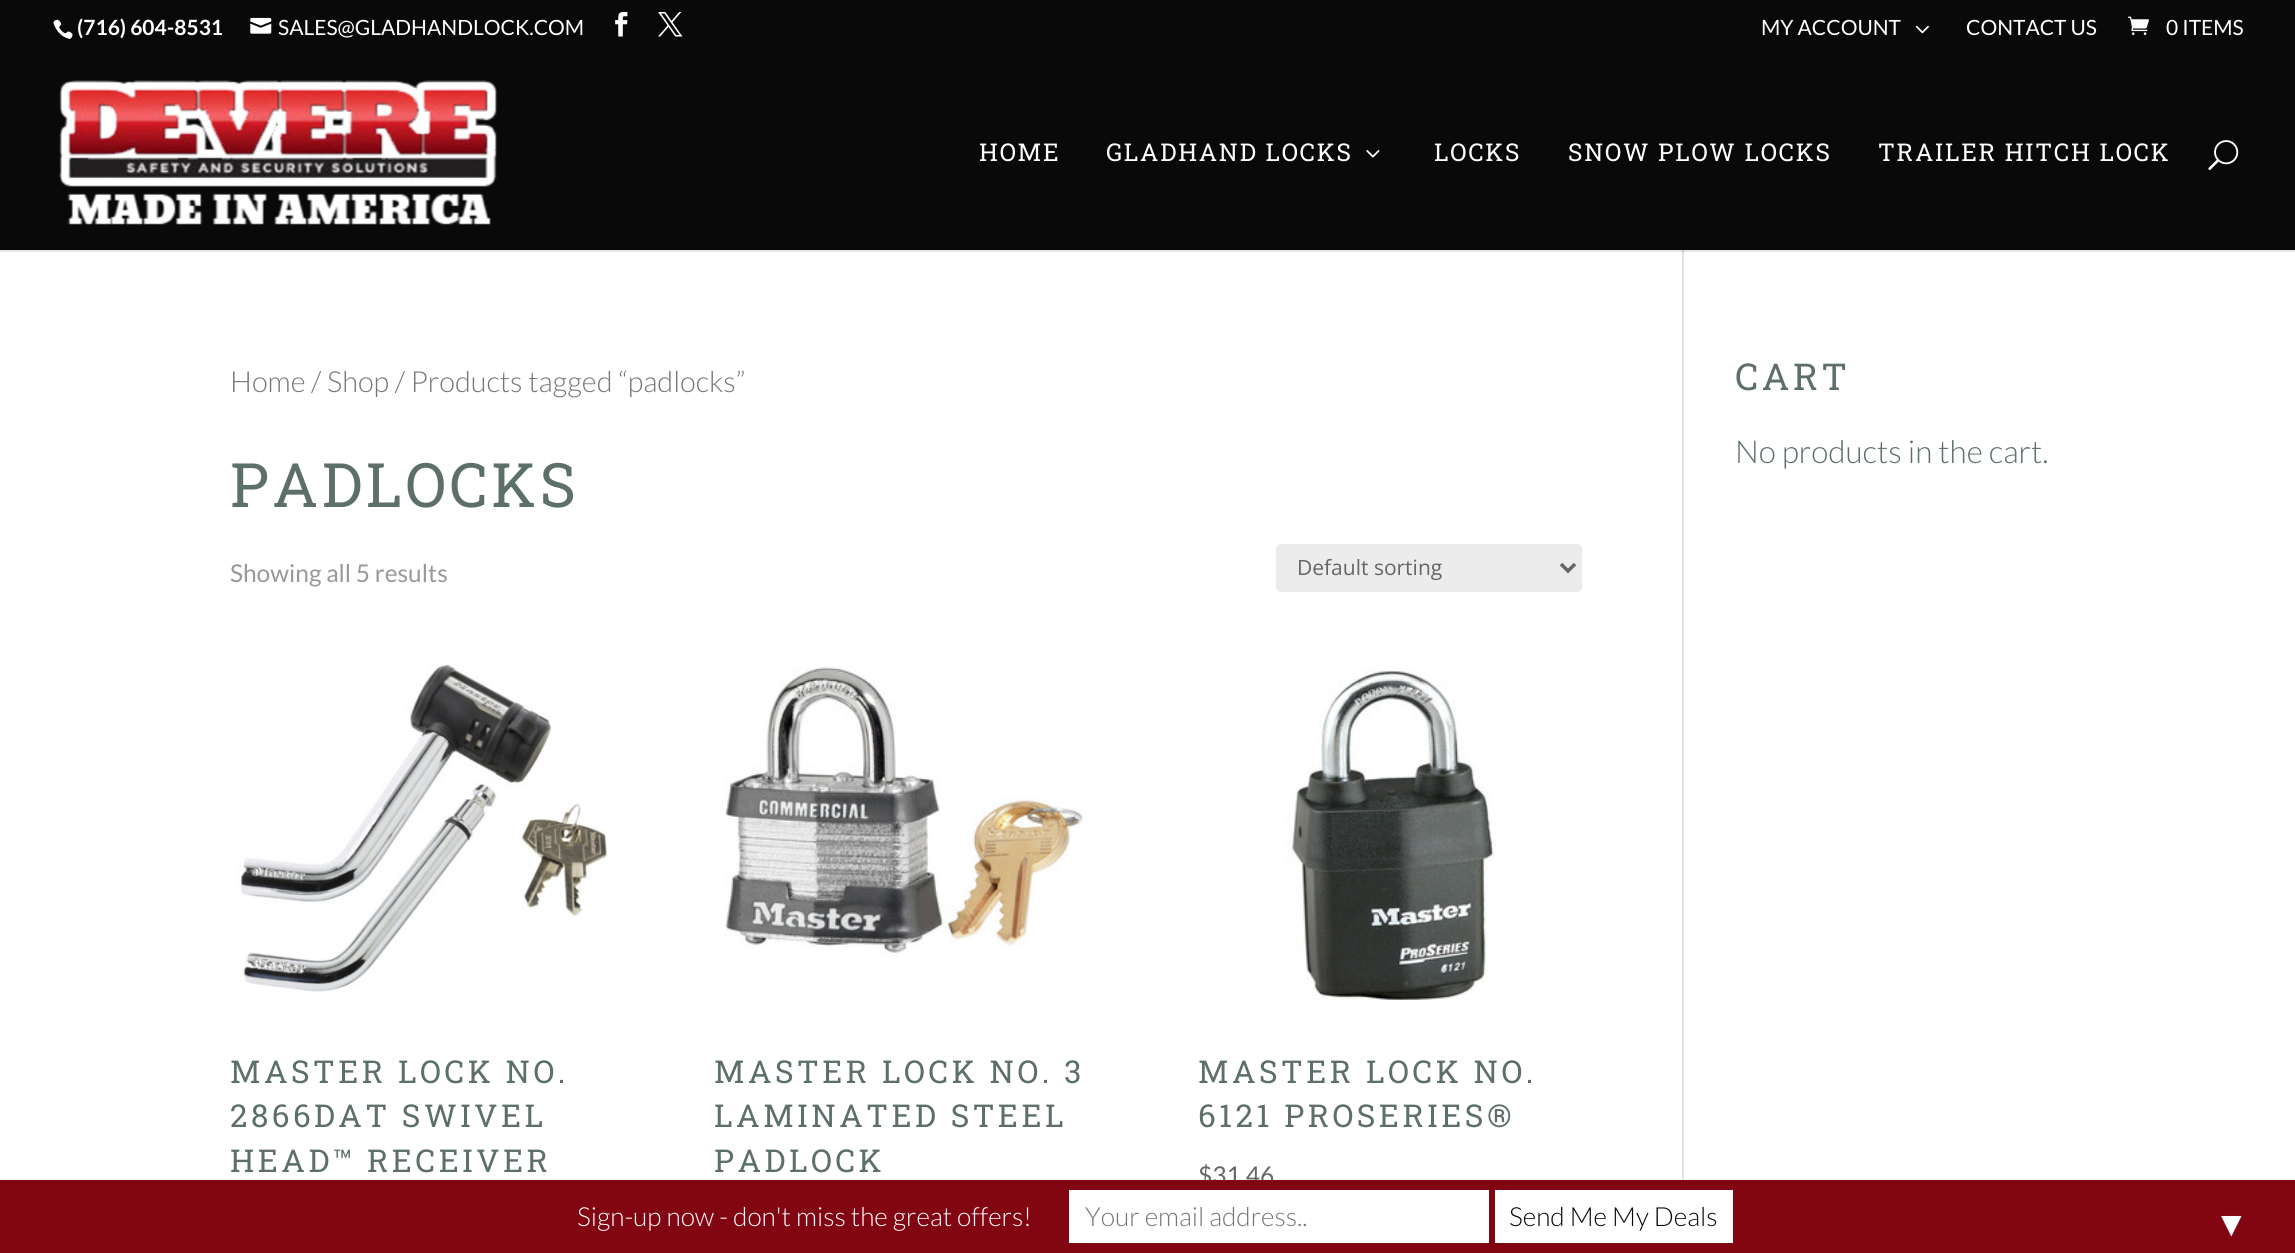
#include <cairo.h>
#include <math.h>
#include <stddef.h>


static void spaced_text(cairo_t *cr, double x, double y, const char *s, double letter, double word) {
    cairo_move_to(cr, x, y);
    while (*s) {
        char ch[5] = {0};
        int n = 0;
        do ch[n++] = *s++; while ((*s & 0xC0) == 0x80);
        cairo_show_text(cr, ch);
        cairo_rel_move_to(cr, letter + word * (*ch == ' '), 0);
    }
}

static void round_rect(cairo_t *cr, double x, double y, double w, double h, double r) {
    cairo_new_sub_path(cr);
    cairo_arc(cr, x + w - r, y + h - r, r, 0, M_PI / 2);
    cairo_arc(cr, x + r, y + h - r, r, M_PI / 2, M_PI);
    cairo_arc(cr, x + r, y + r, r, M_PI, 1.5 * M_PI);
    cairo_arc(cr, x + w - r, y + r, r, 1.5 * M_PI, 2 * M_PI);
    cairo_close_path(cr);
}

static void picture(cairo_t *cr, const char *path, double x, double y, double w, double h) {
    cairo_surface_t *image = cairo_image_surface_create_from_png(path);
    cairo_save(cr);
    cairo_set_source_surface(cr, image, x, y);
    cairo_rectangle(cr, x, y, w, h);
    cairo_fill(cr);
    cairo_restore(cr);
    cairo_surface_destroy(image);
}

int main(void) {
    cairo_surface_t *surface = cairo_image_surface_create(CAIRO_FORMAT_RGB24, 2295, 1253);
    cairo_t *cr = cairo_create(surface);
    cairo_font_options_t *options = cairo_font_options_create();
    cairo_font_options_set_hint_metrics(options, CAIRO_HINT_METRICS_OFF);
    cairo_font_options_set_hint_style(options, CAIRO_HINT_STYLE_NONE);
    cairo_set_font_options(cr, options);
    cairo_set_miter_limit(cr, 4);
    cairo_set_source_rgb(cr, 1, 1, 1);
    cairo_paint(cr);
    cairo_set_source_rgb(cr, 0.902, 0.902, 0.902);
    cairo_rectangle(cr, 0, 250, 2295, 2);
    cairo_fill(cr);
    cairo_set_source_rgb(cr, 0.039, 0.039, 0.039);
    cairo_rectangle(cr, 0, 0, 2295, 250);
    cairo_fill(cr);
    picture(cr, "img1.png", 53, 19, 20, 20);
    cairo_select_font_face(cr, "Lato", CAIRO_FONT_SLANT_NORMAL, CAIRO_FONT_WEIGHT_BOLD);
    cairo_set_font_size(cr, 21);
    cairo_set_source_rgb(cr, 1, 1, 1);
    cairo_move_to(cr, 77, 35);
    cairo_show_text(cr, "(716) 604-8531");
    picture(cr, "img2.png", 250, 17, 22, 17);
    cairo_select_font_face(cr, "Lato", CAIRO_FONT_SLANT_NORMAL, CAIRO_FONT_WEIGHT_NORMAL);
    cairo_move_to(cr, 278, 35);
    cairo_show_text(cr, "SALES@GLADHANDLOCK.COM");
    picture(cr, "img3.png", 615, 12, 13, 25);
    picture(cr, "img4.png", 658, 12, 25, 25);
    cairo_move_to(cr, 1761, 35);
    cairo_show_text(cr, "MY ACCOUNT");
    picture(cr, "img5.png", 1915, 25, 14, 9);
    cairo_move_to(cr, 1966, 35);
    cairo_show_text(cr, "CONTACT US");
    picture(cr, "img6.png", 2128, 16, 21, 19);
    cairo_move_to(cr, 2166, 35);
    cairo_show_text(cr, "0 ITEMS");
    picture(cr, "img7.png", 59, 80, 439, 145);
    cairo_select_font_face(cr, "Roboto Slab", CAIRO_FONT_SLANT_NORMAL, CAIRO_FONT_WEIGHT_NORMAL);
    cairo_set_font_size(cr, 24.5);
    spaced_text(cr, 979, 161, "HOME", 1.75, 0);
    spaced_text(cr, 1106, 161, "GLADHAND LOCKS", 1.75, 0);
    picture(cr, "img8.png", 1366, 150, 14, 8);
    spaced_text(cr, 1434, 161, "LOCKS", 1.75, 0);
    spaced_text(cr, 1568, 161, "SNOW PLOW LOCKS", 1.75, 0);
    spaced_text(cr, 1878, 161, "TRAILER HITCH LOCK", 1.75, 0);
    picture(cr, "img9.png", 2208, 140, 31, 30);
    cairo_set_source_rgb(cr, 0.886, 0.886, 0.886);
    cairo_rectangle(cr, 1682, 250, 2, 930);
    cairo_fill(cr);
    cairo_set_source_rgb(cr, 0.796, 0.796, 0.796);
    cairo_rectangle(cr, 1682, 250, 2, 2);
    cairo_fill(cr);
    cairo_select_font_face(cr, "Lato Light", CAIRO_FONT_SLANT_NORMAL, CAIRO_FONT_WEIGHT_NORMAL);
    cairo_set_font_size(cr, 29);
    cairo_set_source_rgb(cr, 0.463, 0.463, 0.463);
    cairo_move_to(cr, 230, 392);
    cairo_show_text(cr, "Home / Shop / Products tagged “padlocks”");
    cairo_select_font_face(cr, "Roboto Slab", CAIRO_FONT_SLANT_NORMAL, CAIRO_FONT_WEIGHT_NORMAL);
    cairo_set_font_size(cr, 61.25);
    cairo_set_source_rgb(cr, 0.361, 0.435, 0.408);
    spaced_text(cr, 230, 507, "PADLOCKS", 3.5, 0);
    cairo_select_font_face(cr, "Lato", CAIRO_FONT_SLANT_NORMAL, CAIRO_FONT_WEIGHT_NORMAL);
    cairo_set_font_size(cr, 24.5);
    cairo_set_source_rgb(cr, 0.6, 0.6, 0.6);
    cairo_move_to(cr, 230, 582);
    cairo_show_text(cr, "Showing all 5 results");
    cairo_set_source_rgb(cr, 0.925, 0.925, 0.925);
    round_rect(cr, 1276, 544, 306, 48, 5);
    cairo_fill(cr);
    cairo_new_path(cr);
    cairo_move_to(cr, 1561, 564);
    cairo_line_to(cr, 1568, 571);
    cairo_line_to(cr, 1575, 564);
    cairo_set_source_rgb(cr, 0.4, 0.4, 0.4);
    cairo_set_line_width(cr, 3.5);
    cairo_stroke(cr);
    cairo_select_font_face(cr, "Open Sans", CAIRO_FONT_SLANT_NORMAL, CAIRO_FONT_WEIGHT_NORMAL);
    cairo_set_font_size(cr, 21);
    cairo_move_to(cr, 1297, 575);
    cairo_show_text(cr, "Default sorting");
    picture(cr, "img10.png", 237, 662, 371, 330);
    cairo_select_font_face(cr, "Roboto Slab", CAIRO_FONT_SLANT_NORMAL, CAIRO_FONT_WEIGHT_NORMAL);
    cairo_set_font_size(cr, 31.5);
    cairo_set_source_rgb(cr, 0.361, 0.435, 0.408);
    spaced_text(cr, 230, 1083, "MASTER LOCK NO.", 3.5, 0);
    spaced_text(cr, 230, 1127, "2866DAT SWIVEL", 3.5, 0);
    spaced_text(cr, 230, 1172, "HEAD™ RECEIVER", 3.5, 0);
    picture(cr, "img11.png", 725, 667, 359, 290);
    spaced_text(cr, 714, 1083, "MASTER LOCK NO. 3", 3.5, 0);
    spaced_text(cr, 714, 1127, "LAMINATED STEEL", 3.5, 0);
    spaced_text(cr, 714, 1172, "PADLOCK", 3.5, 0);
    picture(cr, "img12.png", 1285, 668, 211, 333);
    spaced_text(cr, 1198, 1083, "MASTER LOCK NO.", 3.5, 0);
    spaced_text(cr, 1198, 1127, "6121 PROSERIES®", 3.5, 0);
    cairo_select_font_face(cr, "Lato", CAIRO_FONT_SLANT_NORMAL, CAIRO_FONT_WEIGHT_NORMAL);
    cairo_set_font_size(cr, 24.5);
    cairo_set_source_rgb(cr, 0.4, 0.4, 0.4);
    cairo_move_to(cr, 1198, 1184);
    cairo_show_text(cr, "$31.46");
    cairo_select_font_face(cr, "Roboto Slab", CAIRO_FONT_SLANT_NORMAL, CAIRO_FONT_WEIGHT_NORMAL);
    cairo_set_font_size(cr, 37);
    cairo_set_source_rgb(cr, 0.361, 0.435, 0.408);
    spaced_text(cr, 1735, 390, "CART", 3.5, 0);
    cairo_select_font_face(cr, "Lato Light", CAIRO_FONT_SLANT_NORMAL, CAIRO_FONT_WEIGHT_NORMAL);
    cairo_set_font_size(cr, 31.5);
    cairo_move_to(cr, 1735, 463);
    cairo_show_text(cr, "No products in the cart.");
    cairo_set_source_rgb(cr, 0.51, 0.027, 0.067);
    cairo_rectangle(cr, 0, 1180, 2295, 73);
    cairo_fill(cr);
    cairo_set_font_size(cr, 26.25);
    cairo_set_source_rgb(cr, 1, 1, 1);
    cairo_move_to(cr, 577, 1226);
    cairo_show_text(cr, "Sign-up now - don't miss the great offers!");
    cairo_rectangle(cr, 1069, 1190, 420, 53);
    cairo_fill(cr);
    cairo_set_source_rgb(cr, 0.463, 0.463, 0.463);
    cairo_move_to(cr, 1085, 1226);
    cairo_show_text(cr, "Your email address..");
    cairo_set_source_rgb(cr, 1, 1, 1);
    cairo_rectangle(cr, 1495, 1190, 238, 53);
    cairo_fill(cr);
    cairo_set_source_rgb(cr, 0.039, 0.039, 0.039);
    cairo_move_to(cr, 1509, 1226);
    cairo_show_text(cr, "Send Me My Deals");
    cairo_select_font_face(cr, "Liberation Sans", CAIRO_FONT_SLANT_NORMAL, CAIRO_FONT_WEIGHT_NORMAL);
    cairo_set_font_size(cr, 35);
    cairo_set_source_rgb(cr, 1, 1, 1);
    cairo_move_to(cr, 2214, 1236);
    cairo_show_text(cr, "▼");
    cairo_surface_write_to_png(surface, "page.png");
    cairo_font_options_destroy(options);
    cairo_destroy(cr);
    cairo_surface_destroy(surface);
    return 0;
}
